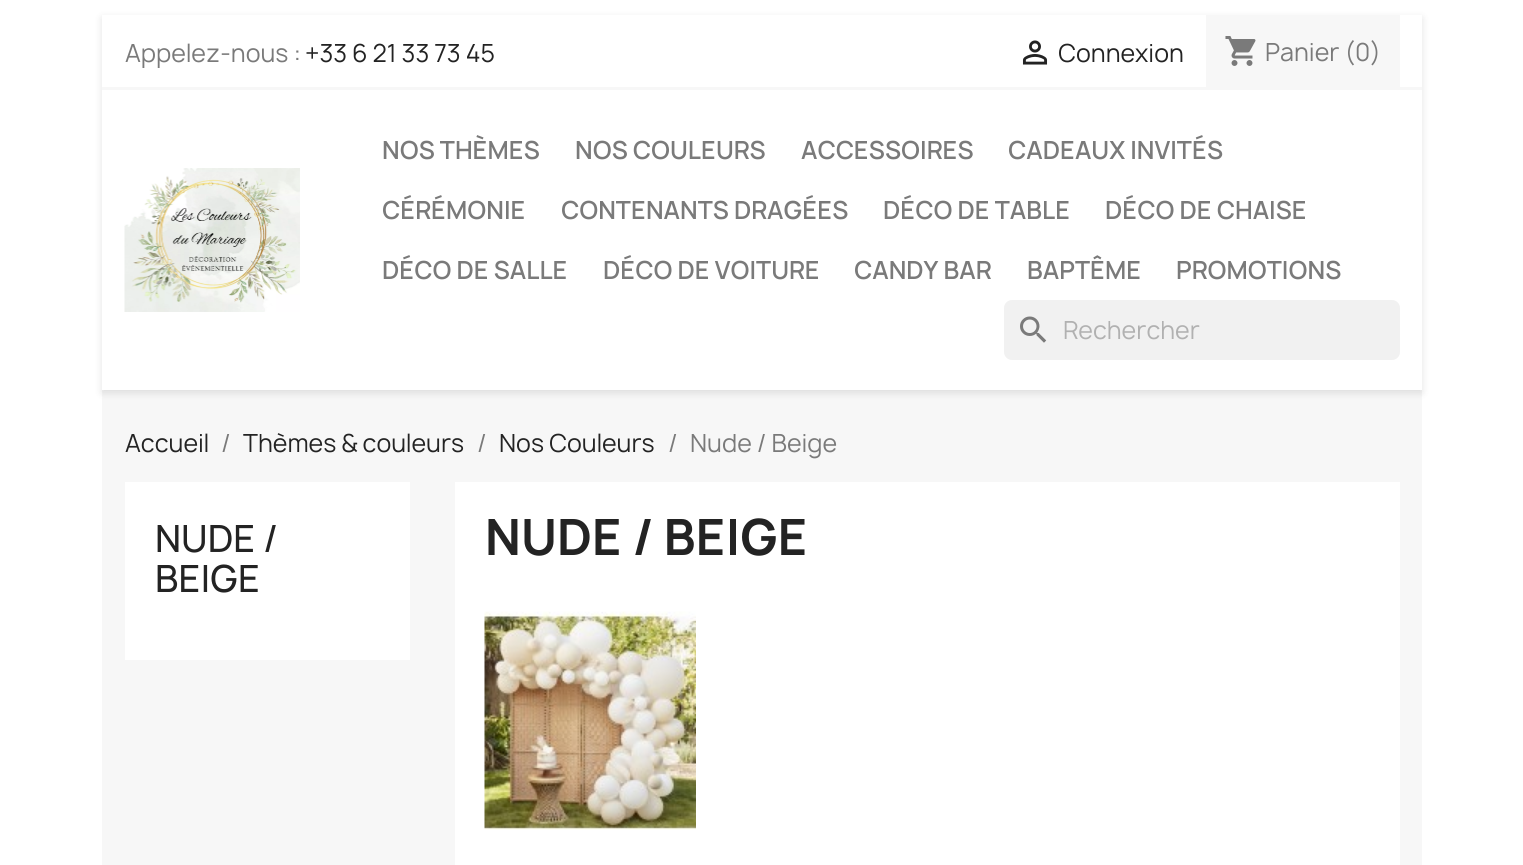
#include <cairo.h>
#include <math.h>
#include <stddef.h>


static void round_rect(cairo_t *cr, double x, double y, double w, double h, double r) {
    cairo_new_sub_path(cr);
    cairo_arc(cr, x + w - r, y + h - r, r, 0, M_PI / 2);
    cairo_arc(cr, x + r, y + h - r, r, M_PI / 2, M_PI);
    cairo_arc(cr, x + r, y + r, r, M_PI, 1.5 * M_PI);
    cairo_arc(cr, x + w - r, y + r, r, 1.5 * M_PI, 2 * M_PI);
    cairo_close_path(cr);
}

static void shadow(cairo_t *cr, double x, double y, double w, double h, double r, double blur, double alpha) {
    cairo_push_group_with_content(cr, CAIRO_CONTENT_ALPHA);
    cairo_set_operator(cr, CAIRO_OPERATOR_SOURCE);
    for (int i = 15; i >= -15 && fmin(w, h) + blur * i / 3 > 0; i -= 2) {
        double e = blur * i / 6;
        cairo_set_source_rgba(cr, 0, 0, 0, alpha * erfc((i - 1) / 8.5) / 2);
        round_rect(cr, x - e, y - e, w + 2 * e, h + 2 * e, fmax(0, fmin(r + e + blur * .6, fmin(w, h) / 2 + e)));
        cairo_fill(cr);
    }
    cairo_pattern_t *soft = cairo_pop_group(cr);
    cairo_mask(cr, soft);
    cairo_pattern_destroy(soft);
}

static void picture(cairo_t *cr, const char *path, double x, double y, double w, double h) {
    cairo_surface_t *image = cairo_image_surface_create_from_png(path);
    cairo_save(cr);
    cairo_set_source_surface(cr, image, x, y);
    cairo_rectangle(cr, x, y, w, h);
    cairo_fill(cr);
    cairo_restore(cr);
    cairo_surface_destroy(image);
}

int main(void) {
    cairo_surface_t *surface = cairo_image_surface_create(CAIRO_FORMAT_RGB24, 1523, 865);
    cairo_t *cr = cairo_create(surface);
    cairo_font_options_t *options = cairo_font_options_create();
    cairo_font_options_set_hint_metrics(options, CAIRO_HINT_METRICS_OFF);
    cairo_font_options_set_hint_style(options, CAIRO_HINT_STYLE_NONE);
    cairo_set_font_options(cr, options);
    cairo_set_miter_limit(cr, 4);
    cairo_set_source_rgb(cr, 1, 1, 1);
    cairo_paint(cr);
    cairo_set_source_rgb(cr, 0.965, 0.965, 0.965);
    cairo_rectangle(cr, 102, 390, 1320, 475);
    cairo_fill(cr);
    cairo_save(cr);
    cairo_set_fill_rule(cr, CAIRO_FILL_RULE_EVEN_ODD);
    cairo_new_path(cr);
    cairo_move_to(cr, 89, 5);
    cairo_line_to(cr, 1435, 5);
    cairo_line_to(cr, 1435, 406);
    cairo_line_to(cr, 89, 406);
    cairo_close_path(cr);
    cairo_move_to(cr, 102, 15);
    cairo_line_to(cr, 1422, 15);
    cairo_line_to(cr, 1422, 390);
    cairo_line_to(cr, 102, 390);
    cairo_close_path(cr);
    cairo_clip(cr);
    cairo_set_source_rgb(cr, 0, 0, 0);
    shadow(cr, 102, 18, 1320, 375, 0, 4, 0.11);
    cairo_restore(cr);
    cairo_rectangle(cr, 102, 87, 1320, 3);
    cairo_fill(cr);
    cairo_select_font_face(cr, "Manrope", CAIRO_FONT_SLANT_NORMAL, CAIRO_FONT_WEIGHT_NORMAL);
    cairo_set_font_size(cr, 24);
    cairo_set_source_rgb(cr, 0.478, 0.478, 0.478);
    cairo_move_to(cr, 125, 62);
    cairo_show_text(cr, "Appelez-nous :");
    cairo_set_source_rgb(cr, 0.137, 0.137, 0.137);
    cairo_move_to(cr, 305, 62);
    cairo_show_text(cr, "+33 6 21 33 73 45");
    picture(cr, "img1.png", 1022, 40, 26, 25);
    cairo_move_to(cr, 1058, 62);
    cairo_show_text(cr, "Connexion");
    cairo_set_source_rgb(cr, 0.965, 0.965, 0.965);
    cairo_rectangle(cr, 1206, 15, 194, 72);
    cairo_fill(cr);
    picture(cr, "img2.png", 1225, 36, 31, 30);
    cairo_set_source_rgb(cr, 0.478, 0.478, 0.478);
    cairo_move_to(cr, 1265, 61);
    cairo_show_text(cr, "Panier (0)");
    picture(cr, "img3.png", 124, 168, 176, 144);
    cairo_select_font_face(cr, "Manrope SemiBold", CAIRO_FONT_SLANT_NORMAL, CAIRO_FONT_WEIGHT_NORMAL);
    cairo_move_to(cr, 382, 159);
    cairo_show_text(cr, "NOS THÈMES");
    cairo_move_to(cr, 575, 159);
    cairo_show_text(cr, "NOS COULEURS");
    cairo_move_to(cr, 801, 159);
    cairo_show_text(cr, "ACCESSOIRES");
    cairo_move_to(cr, 1008, 159);
    cairo_show_text(cr, "CADEAUX INVITÉS");
    cairo_move_to(cr, 382, 219);
    cairo_show_text(cr, "CÉRÉMONIE");
    cairo_move_to(cr, 561, 219);
    cairo_show_text(cr, "CONTENANTS DRAGÉES");
    cairo_move_to(cr, 883, 219);
    cairo_show_text(cr, "DÉCO DE TABLE");
    cairo_move_to(cr, 1105, 219);
    cairo_show_text(cr, "DÉCO DE CHAISE");
    cairo_move_to(cr, 382, 279);
    cairo_show_text(cr, "DÉCO DE SALLE");
    cairo_move_to(cr, 603, 279);
    cairo_show_text(cr, "DÉCO DE VOITURE");
    cairo_move_to(cr, 854, 279);
    cairo_show_text(cr, "CANDY BAR");
    cairo_move_to(cr, 1027, 279);
    cairo_show_text(cr, "BAPTÊME");
    cairo_move_to(cr, 1176, 279);
    cairo_show_text(cr, "PROMOTIONS");
    cairo_set_source_rgb(cr, 0.945, 0.945, 0.945);
    round_rect(cr, 1004, 300, 396, 60, 8);
    cairo_fill(cr);
    picture(cr, "img4.png", 1020, 316, 27, 27);
    cairo_select_font_face(cr, "Manrope", CAIRO_FONT_SLANT_NORMAL, CAIRO_FONT_WEIGHT_NORMAL);
    cairo_set_source_rgb(cr, 0.694, 0.694, 0.694);
    cairo_move_to(cr, 1063, 339);
    cairo_show_text(cr, "Rechercher");
    cairo_set_source_rgb(cr, 0.137, 0.137, 0.137);
    cairo_move_to(cr, 125, 452);
    cairo_show_text(cr, "Accueil");
    cairo_set_source_rgb(cr, 0.478, 0.478, 0.478);
    cairo_move_to(cr, 221, 452);
    cairo_show_text(cr, "/");
    cairo_set_source_rgb(cr, 0.137, 0.137, 0.137);
    cairo_move_to(cr, 243, 452);
    cairo_show_text(cr, "Thèmes & couleurs");
    cairo_set_source_rgb(cr, 0.478, 0.478, 0.478);
    cairo_move_to(cr, 477, 452);
    cairo_show_text(cr, "/");
    cairo_set_source_rgb(cr, 0.137, 0.137, 0.137);
    cairo_move_to(cr, 499, 452);
    cairo_show_text(cr, "Nos Couleurs");
    cairo_set_source_rgb(cr, 0.478, 0.478, 0.478);
    cairo_move_to(cr, 668, 452);
    cairo_show_text(cr, "/");
    cairo_move_to(cr, 690, 452);
    cairo_show_text(cr, "Nude / Beige");
    cairo_set_source_rgb(cr, 1, 1, 1);
    cairo_rectangle(cr, 125, 482, 285, 178);
    cairo_fill(cr);
    cairo_select_font_face(cr, "Manrope Medium", CAIRO_FONT_SLANT_NORMAL, CAIRO_FONT_WEIGHT_NORMAL);
    cairo_set_font_size(cr, 36);
    cairo_set_source_rgb(cr, 0.137, 0.137, 0.137);
    cairo_move_to(cr, 155, 552);
    cairo_show_text(cr, "NUDE /");
    cairo_move_to(cr, 155, 592);
    cairo_show_text(cr, "BEIGE");
    cairo_set_source_rgb(cr, 1, 1, 1);
    cairo_rectangle(cr, 455, 482, 945, 383);
    cairo_fill(cr);
    cairo_select_font_face(cr, "Manrope", CAIRO_FONT_SLANT_NORMAL, CAIRO_FONT_WEIGHT_BOLD);
    cairo_set_font_size(cr, 48);
    cairo_set_source_rgb(cr, 0.137, 0.137, 0.137);
    cairo_move_to(cr, 485, 555);
    cairo_show_text(cr, "NUDE / BEIGE");
    picture(cr, "img5.png", 484, 611, 212, 219);
    cairo_surface_write_to_png(surface, "page.png");
    cairo_font_options_destroy(options);
    cairo_destroy(cr);
    cairo_surface_destroy(surface);
    return 0;
}
